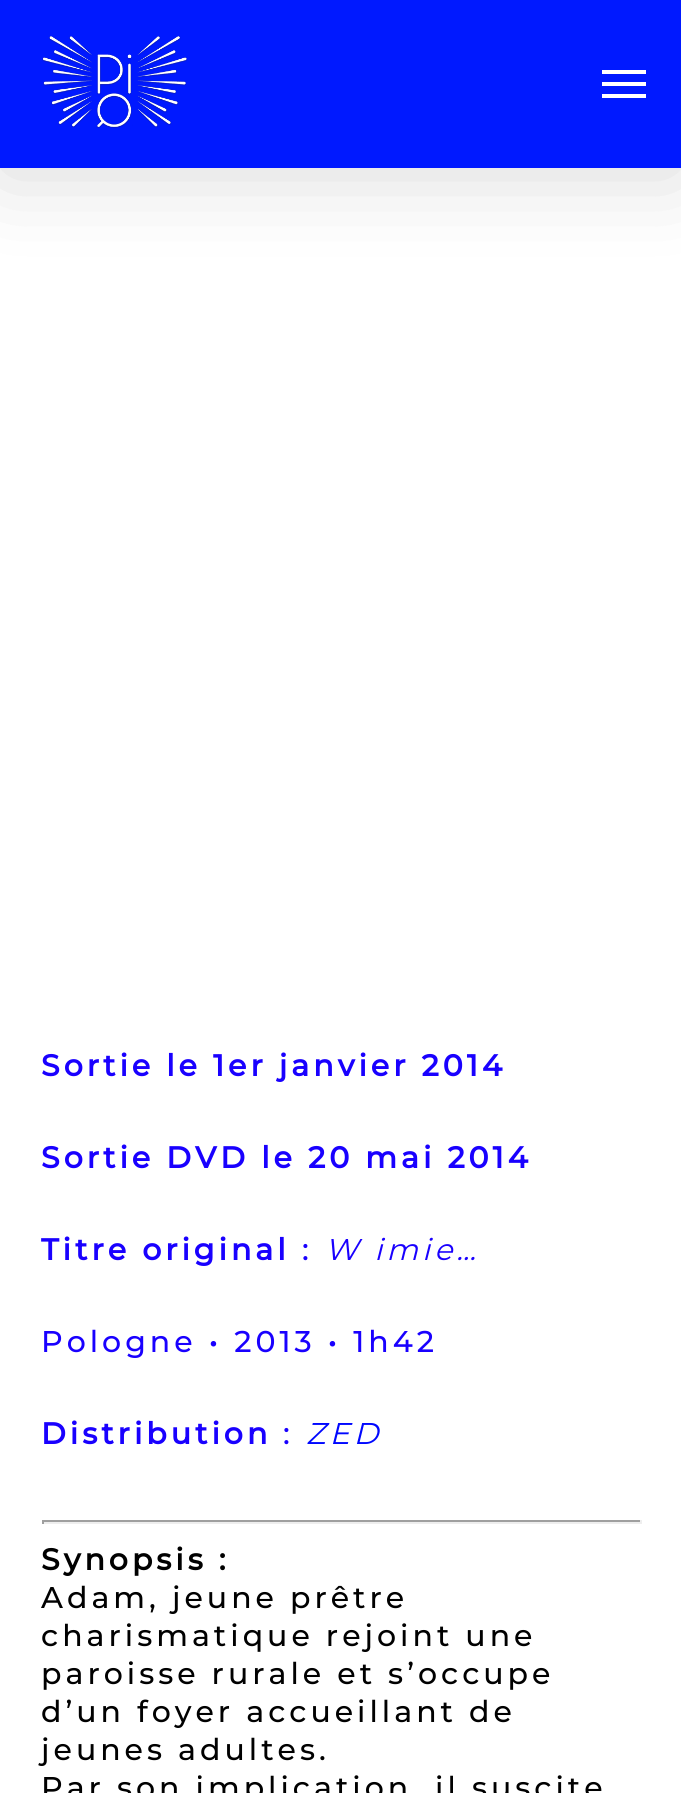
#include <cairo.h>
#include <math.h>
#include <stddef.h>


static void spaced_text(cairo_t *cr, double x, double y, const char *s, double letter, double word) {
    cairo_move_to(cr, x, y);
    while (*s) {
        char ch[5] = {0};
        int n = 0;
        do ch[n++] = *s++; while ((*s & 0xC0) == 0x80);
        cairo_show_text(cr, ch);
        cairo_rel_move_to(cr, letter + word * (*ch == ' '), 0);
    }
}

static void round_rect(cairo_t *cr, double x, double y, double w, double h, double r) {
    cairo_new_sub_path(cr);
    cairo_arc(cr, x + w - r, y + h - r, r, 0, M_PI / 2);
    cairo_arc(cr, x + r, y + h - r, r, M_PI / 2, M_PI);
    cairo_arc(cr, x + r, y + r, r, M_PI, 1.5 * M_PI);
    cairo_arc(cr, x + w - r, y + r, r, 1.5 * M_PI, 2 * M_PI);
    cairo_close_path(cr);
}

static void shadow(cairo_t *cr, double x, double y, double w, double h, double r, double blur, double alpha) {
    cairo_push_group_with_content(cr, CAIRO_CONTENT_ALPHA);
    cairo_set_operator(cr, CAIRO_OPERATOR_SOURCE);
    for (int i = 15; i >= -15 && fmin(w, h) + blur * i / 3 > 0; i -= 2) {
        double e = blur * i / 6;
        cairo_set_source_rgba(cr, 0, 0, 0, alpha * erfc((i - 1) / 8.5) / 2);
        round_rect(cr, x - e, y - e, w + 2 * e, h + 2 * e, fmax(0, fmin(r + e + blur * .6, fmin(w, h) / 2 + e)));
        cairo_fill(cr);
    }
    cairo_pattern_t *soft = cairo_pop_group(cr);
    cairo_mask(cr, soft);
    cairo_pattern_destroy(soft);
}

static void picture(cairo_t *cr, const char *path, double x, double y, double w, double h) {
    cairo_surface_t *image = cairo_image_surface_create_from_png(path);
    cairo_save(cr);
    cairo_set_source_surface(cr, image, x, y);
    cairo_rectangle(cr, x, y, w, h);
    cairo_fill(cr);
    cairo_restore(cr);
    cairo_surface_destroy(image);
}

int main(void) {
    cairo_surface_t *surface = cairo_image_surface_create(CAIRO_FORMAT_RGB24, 681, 1793);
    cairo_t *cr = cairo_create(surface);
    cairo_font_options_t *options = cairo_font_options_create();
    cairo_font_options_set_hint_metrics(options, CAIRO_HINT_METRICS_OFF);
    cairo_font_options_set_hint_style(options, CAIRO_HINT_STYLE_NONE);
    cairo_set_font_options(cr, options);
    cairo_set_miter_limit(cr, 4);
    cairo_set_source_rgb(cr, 1, 1, 1);
    cairo_paint(cr);
    cairo_set_source_rgb(cr, 0, 0, 0);
    shadow(cr, 0, 6, 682, 168, 0, 45, 0.15);
    cairo_set_source_rgb(cr, 0, 0.098, 1);
    cairo_rectangle(cr, 0, 0, 681, 168);
    cairo_fill(cr);
    picture(cr, "img1.png", 42, 36, 146, 93);
    cairo_set_source_rgb(cr, 1, 1, 1);
    cairo_rectangle(cr, 602, 70, 44, 4);
    cairo_fill(cr);
    cairo_rectangle(cr, 602, 94, 44, 4);
    cairo_fill(cr);
    cairo_rectangle(cr, 602, 82, 44, 4);
    cairo_fill(cr);
    cairo_select_font_face(cr, "Montserrat", CAIRO_FONT_SLANT_NORMAL, CAIRO_FONT_WEIGHT_BOLD);
    cairo_set_font_size(cr, 30);
    cairo_set_source_rgb(cr, 0.098, 0, 1);
    spaced_text(cr, 41, 1076, "Sortie le 1er janvier 2014", 4, 0);
    spaced_text(cr, 41, 1168, "Sortie DVD le 20 mai 2014", 4, 0);
    spaced_text(cr, 41, 1260, "Titre original", 4, 0);
    cairo_select_font_face(cr, "Montserrat Medium", CAIRO_FONT_SLANT_NORMAL, CAIRO_FONT_WEIGHT_NORMAL);
    spaced_text(cr, 302, 1260, ":", 4, 0);
    cairo_select_font_face(cr, "Montserrat", CAIRO_FONT_SLANT_ITALIC, CAIRO_FONT_WEIGHT_NORMAL);
    spaced_text(cr, 325, 1260, "W imie…", 4, 0);
    cairo_select_font_face(cr, "Montserrat Medium", CAIRO_FONT_SLANT_NORMAL, CAIRO_FONT_WEIGHT_NORMAL);
    spaced_text(cr, 41, 1352, "Pologne • 2013 • 1h42", 4, 0);
    cairo_select_font_face(cr, "Montserrat", CAIRO_FONT_SLANT_NORMAL, CAIRO_FONT_WEIGHT_BOLD);
    spaced_text(cr, 41, 1444, "Distribution", 4, 0);
    cairo_select_font_face(cr, "Montserrat Medium", CAIRO_FONT_SLANT_NORMAL, CAIRO_FONT_WEIGHT_NORMAL);
    spaced_text(cr, 283, 1444, ":", 4, 0);
    cairo_select_font_face(cr, "Montserrat", CAIRO_FONT_SLANT_ITALIC, CAIRO_FONT_WEIGHT_NORMAL);
    cairo_set_source_rgb(cr, 0, 0.031, 1);
    spaced_text(cr, 306, 1444, "ZED", 4, 0);
    cairo_set_source_rgb(cr, 0.624, 0.624, 0.624);
    cairo_rectangle(cr, 42, 1520, 600, 2);
    cairo_fill(cr);
    cairo_set_source_rgb(cr, 0.933, 0.933, 0.933);
    cairo_rectangle(cr, 640, 1520, 2, 4);
    cairo_fill(cr);
    cairo_rectangle(cr, 42, 1522, 600, 2);
    cairo_fill(cr);
    cairo_set_source_rgb(cr, 0.624, 0.624, 0.624);
    cairo_rectangle(cr, 42, 1520, 2, 4);
    cairo_fill(cr);
    cairo_select_font_face(cr, "Montserrat", CAIRO_FONT_SLANT_NORMAL, CAIRO_FONT_WEIGHT_BOLD);
    cairo_set_source_rgb(cr, 0, 0, 0);
    spaced_text(cr, 41, 1570, "Synopsis :", 4, 0);
    cairo_select_font_face(cr, "Montserrat Medium", CAIRO_FONT_SLANT_NORMAL, CAIRO_FONT_WEIGHT_NORMAL);
    spaced_text(cr, 41, 1608, "Adam, jeune prêtre", 4, 0);
    spaced_text(cr, 41, 1646, "charismatique rejoint une", 4, 0);
    spaced_text(cr, 41, 1684, "paroisse rurale et s’occupe", 4, 0);
    spaced_text(cr, 41, 1722, "d’un foyer accueillant de", 4, 0);
    spaced_text(cr, 41, 1760, "jeunes adultes.", 4, 0);
    spaced_text(cr, 41, 1798, "Par son implication, il suscite", 4, 0);
    cairo_surface_write_to_png(surface, "page.png");
    cairo_font_options_destroy(options);
    cairo_destroy(cr);
    cairo_surface_destroy(surface);
    return 0;
}
